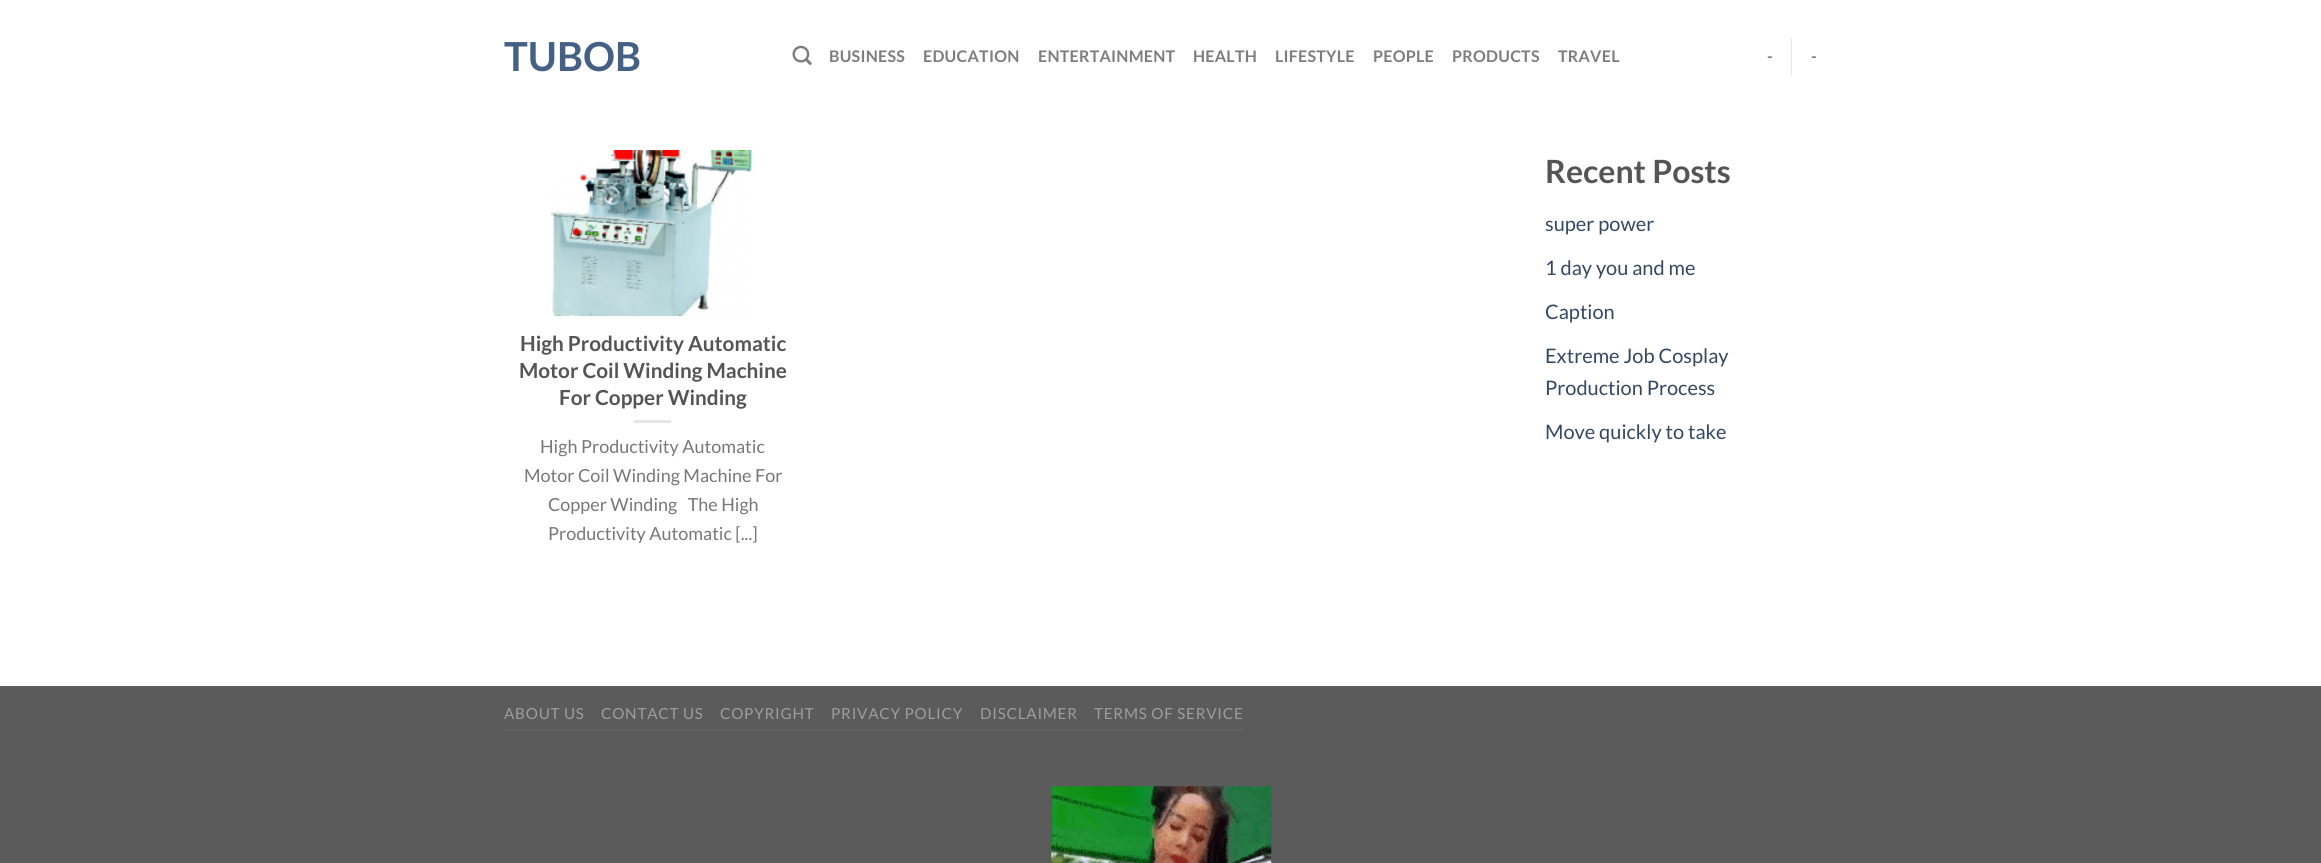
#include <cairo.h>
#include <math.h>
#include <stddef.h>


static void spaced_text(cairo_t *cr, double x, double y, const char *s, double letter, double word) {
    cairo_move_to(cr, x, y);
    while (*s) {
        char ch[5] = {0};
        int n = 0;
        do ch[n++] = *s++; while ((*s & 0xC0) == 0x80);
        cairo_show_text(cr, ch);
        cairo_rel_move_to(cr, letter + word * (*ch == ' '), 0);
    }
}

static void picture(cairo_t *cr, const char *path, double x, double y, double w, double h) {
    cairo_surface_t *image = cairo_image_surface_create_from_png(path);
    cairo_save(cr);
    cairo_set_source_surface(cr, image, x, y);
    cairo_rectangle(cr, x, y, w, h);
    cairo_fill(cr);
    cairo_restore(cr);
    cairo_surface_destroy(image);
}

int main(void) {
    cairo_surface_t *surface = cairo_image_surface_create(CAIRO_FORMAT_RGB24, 2321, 863);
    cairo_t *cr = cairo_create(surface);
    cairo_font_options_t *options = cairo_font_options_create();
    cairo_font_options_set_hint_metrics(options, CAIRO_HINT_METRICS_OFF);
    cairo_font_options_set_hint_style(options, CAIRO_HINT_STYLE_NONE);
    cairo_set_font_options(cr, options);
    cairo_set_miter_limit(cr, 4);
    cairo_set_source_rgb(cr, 0.357, 0.357, 0.357);
    cairo_paint(cr);
    cairo_set_source_rgb(cr, 1, 1, 1);
    cairo_rectangle(cr, 0, 0, 2321, 686);
    cairo_fill(cr);
    cairo_select_font_face(cr, "Lato", CAIRO_FONT_SLANT_NORMAL, CAIRO_FONT_WEIGHT_BOLD);
    cairo_set_font_size(cr, 40);
    cairo_set_source_rgb(cr, 0.267, 0.376, 0.518);
    cairo_move_to(cr, 504, 71);
    cairo_show_text(cr, "TUBOB");
    picture(cr, "img1.png", 792, 45, 20, 20);
    cairo_set_font_size(cr, 16);
    cairo_set_source_rgb(cr, 0.49, 0.49, 0.49);
    spaced_text(cr, 829, 62, "BUSINESS", 0.25, 0);
    spaced_text(cr, 923, 62, "EDUCATION", 0.25, 0);
    spaced_text(cr, 1038, 62, "ENTERTAINMENT", 0.25, 0);
    spaced_text(cr, 1193, 62, "HEALTH", 0.25, 0);
    spaced_text(cr, 1275, 62, "LIFESTYLE", 0.25, 0);
    spaced_text(cr, 1373, 62, "PEOPLE", 0.25, 0);
    spaced_text(cr, 1452, 62, "PRODUCTS", 0.25, 0);
    spaced_text(cr, 1558, 62, "TRAVEL", 0.25, 0);
    spaced_text(cr, 1767, 62, "-", 0.25, 0);
    cairo_set_source_rgb(cr, 0.902, 0.902, 0.902);
    cairo_rectangle(cr, 1791, 38, 1, 37);
    cairo_fill(cr);
    cairo_set_source_rgb(cr, 0.49, 0.49, 0.49);
    spaced_text(cr, 1811, 62, "-", 0.25, 0);
    picture(cr, "img2.png", 550, 150, 203, 167);
    cairo_set_font_size(cr, 20.75);
    cairo_set_source_rgb(cr, 0.333, 0.333, 0.333);
    cairo_move_to(cr, 520, 351);
    cairo_show_text(cr, "High Productivity Automatic");
    cairo_move_to(cr, 519, 378);
    cairo_show_text(cr, "Motor Coil Winding Machine");
    cairo_move_to(cr, 559, 405);
    cairo_show_text(cr, "For Copper Winding");
    cairo_set_source_rgb(cr, 0.902, 0.902, 0.902);
    cairo_rectangle(cr, 634, 420, 37, 3);
    cairo_fill(cr);
    cairo_select_font_face(cr, "Lato", CAIRO_FONT_SLANT_NORMAL, CAIRO_FONT_WEIGHT_NORMAL);
    cairo_set_font_size(cr, 18);
    cairo_set_source_rgb(cr, 0.467, 0.467, 0.467);
    cairo_move_to(cr, 540, 453);
    cairo_show_text(cr, "High Productivity Automatic");
    cairo_move_to(cr, 524, 482);
    cairo_show_text(cr, "Motor Coil Winding Machine For");
    cairo_move_to(cr, 548, 511);
    cairo_show_text(cr, "Copper Winding   The High");
    cairo_move_to(cr, 548, 540);
    cairo_show_text(cr, "Productivity Automatic [...]");
    cairo_select_font_face(cr, "Lato", CAIRO_FONT_SLANT_NORMAL, CAIRO_FONT_WEIGHT_BOLD);
    cairo_set_font_size(cr, 32);
    cairo_set_source_rgb(cr, 0.333, 0.333, 0.333);
    cairo_move_to(cr, 1545, 183);
    cairo_show_text(cr, "Recent Posts");
    cairo_select_font_face(cr, "Lato", CAIRO_FONT_SLANT_NORMAL, CAIRO_FONT_WEIGHT_NORMAL);
    cairo_set_font_size(cr, 20);
    cairo_set_source_rgb(cr, 0.2, 0.282, 0.384);
    cairo_move_to(cr, 1545, 231);
    cairo_show_text(cr, "super power");
    cairo_move_to(cr, 1545, 275);
    cairo_show_text(cr, "1 day you and me");
    cairo_move_to(cr, 1545, 319);
    cairo_show_text(cr, "Caption");
    cairo_move_to(cr, 1545, 363);
    cairo_show_text(cr, "Extreme Job Cosplay");
    cairo_move_to(cr, 1545, 395);
    cairo_show_text(cr, "Production Process");
    cairo_move_to(cr, 1545, 439);
    cairo_show_text(cr, "Move quickly to take");
    cairo_set_source_rgb(cr, 0.396, 0.396, 0.396);
    cairo_rectangle(cr, 505, 730, 739, 1);
    cairo_fill(cr);
    cairo_set_font_size(cr, 15.25);
    cairo_set_source_rgb(cr, 0.616, 0.616, 0.616);
    spaced_text(cr, 504, 719, "ABOUT US", 0.75, 0);
    spaced_text(cr, 601, 719, "CONTACT US", 0.75, 0);
    spaced_text(cr, 720, 719, "COPYRIGHT", 0.75, 0);
    spaced_text(cr, 831, 719, "PRIVACY POLICY", 0.75, 0);
    spaced_text(cr, 980, 719, "DISCLAIMER", 0.75, 0);
    spaced_text(cr, 1094, 719, "TERMS OF SERVICE", 0.75, 0);
    picture(cr, "img3.png", 1051, 786, 221, 77);
    cairo_surface_write_to_png(surface, "page.png");
    cairo_font_options_destroy(options);
    cairo_destroy(cr);
    cairo_surface_destroy(surface);
    return 0;
}
